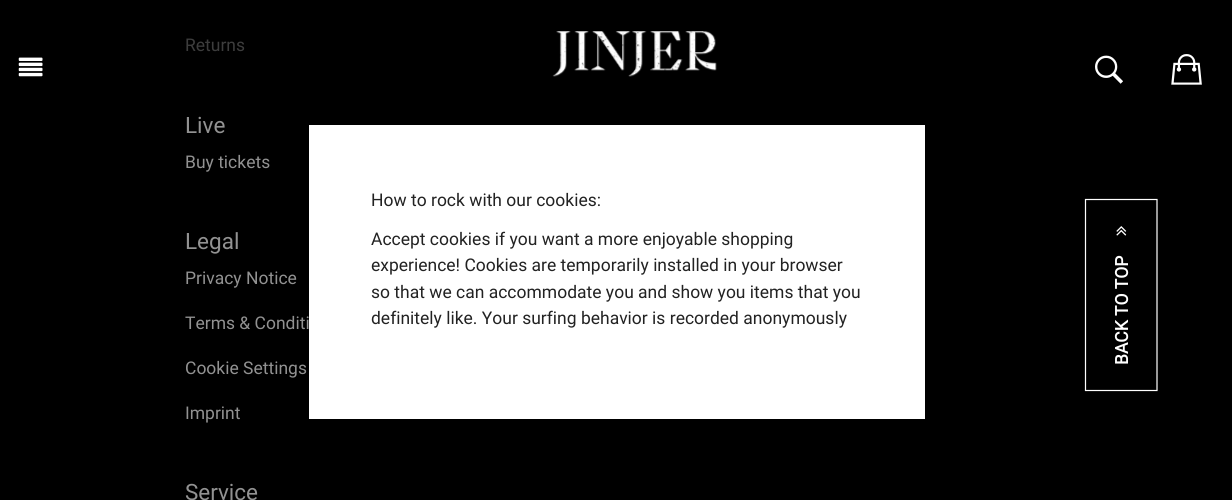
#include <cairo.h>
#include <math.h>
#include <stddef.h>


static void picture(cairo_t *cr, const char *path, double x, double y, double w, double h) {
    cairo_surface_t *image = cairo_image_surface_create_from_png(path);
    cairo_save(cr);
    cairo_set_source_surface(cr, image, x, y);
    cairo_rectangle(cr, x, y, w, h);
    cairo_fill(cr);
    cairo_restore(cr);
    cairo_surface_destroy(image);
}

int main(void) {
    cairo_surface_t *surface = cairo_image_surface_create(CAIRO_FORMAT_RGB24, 1232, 500);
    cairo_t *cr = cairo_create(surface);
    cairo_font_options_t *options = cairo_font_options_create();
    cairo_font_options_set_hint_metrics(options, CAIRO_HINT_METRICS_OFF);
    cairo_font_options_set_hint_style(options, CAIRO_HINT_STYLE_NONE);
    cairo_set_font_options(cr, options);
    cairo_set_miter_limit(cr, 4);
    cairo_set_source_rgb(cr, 0, 0, 0);
    cairo_paint(cr);
    picture(cr, "img1.png", 18, 57, 25, 20);
    picture(cr, "img2.png", 552, 31, 165, 46);
    picture(cr, "img3.png", 1095, 55, 28, 29);
    picture(cr, "img4.png", 1171, 54, 31, 31);
    cairo_select_font_face(cr, "Roboto", CAIRO_FONT_SLANT_NORMAL, CAIRO_FONT_WEIGHT_NORMAL);
    cairo_set_font_size(cr, 17.5);
    cairo_set_source_rgb(cr, 0.239, 0.239, 0.239);
    cairo_move_to(cr, 185, 51);
    cairo_show_text(cr, "Returns");
    cairo_set_font_size(cr, 22.5);
    cairo_set_source_rgb(cr, 0.573, 0.573, 0.573);
    cairo_move_to(cr, 185, 133);
    cairo_show_text(cr, "Live");
    cairo_set_font_size(cr, 17.5);
    cairo_move_to(cr, 185, 168);
    cairo_show_text(cr, "Buy tickets");
    cairo_set_font_size(cr, 22.5);
    cairo_move_to(cr, 185, 249);
    cairo_show_text(cr, "Legal");
    cairo_set_font_size(cr, 17.5);
    cairo_move_to(cr, 185, 284);
    cairo_show_text(cr, "Privacy Notice");
    cairo_move_to(cr, 185, 329);
    cairo_show_text(cr, "Terms & Conditi");
    cairo_move_to(cr, 185, 374);
    cairo_show_text(cr, "Cookie Settings");
    cairo_move_to(cr, 185, 419);
    cairo_show_text(cr, "Imprint");
    cairo_set_font_size(cr, 22.5);
    cairo_move_to(cr, 185, 500);
    cairo_show_text(cr, "Service");
    cairo_new_path(cr);
    cairo_move_to(cr, 1085.5, 390.5);
    cairo_line_to(cr, 1085.5, 199.5);
    cairo_line_to(cr, 1157, 199.5);
    cairo_line_to(cr, 1157, 390.5);
    cairo_close_path(cr);
    cairo_set_source_rgb(cr, 1, 1, 1);
    cairo_set_line_width(cr, 1.2);
    cairo_stroke(cr);
    picture(cr, "img5.png", 1116, 226, 11, 10);
    cairo_select_font_face(cr, "Roboto", CAIRO_FONT_SLANT_NORMAL, CAIRO_FONT_WEIGHT_BOLD);
    cairo_set_font_size(cr, 17.5);
    cairo_save(cr);
    cairo_translate(cr, 1128, 365);
    cairo_rotate(cr, -90 * M_PI / 180);
    cairo_move_to(cr, 0, 0);
    cairo_show_text(cr, "BACK TO TOP");
    cairo_restore(cr);
    cairo_rectangle(cr, 309, 125, 616, 294);
    cairo_fill(cr);
    cairo_select_font_face(cr, "Roboto", CAIRO_FONT_SLANT_NORMAL, CAIRO_FONT_WEIGHT_NORMAL);
    cairo_set_source_rgb(cr, 0.133, 0.133, 0.133);
    cairo_move_to(cr, 371, 206);
    cairo_show_text(cr, "How to rock with our cookies:");
    cairo_move_to(cr, 371, 245);
    cairo_show_text(cr, "Accept cookies if you want a more enjoyable shopping");
    cairo_move_to(cr, 371, 271);
    cairo_show_text(cr, "experience! Cookies are temporarily installed in your browser");
    cairo_move_to(cr, 371, 298);
    cairo_show_text(cr, "so that we can accommodate you and show you items that you");
    cairo_move_to(cr, 371, 324);
    cairo_show_text(cr, "definitely like. Your surfing behavior is recorded anonymously");
    cairo_surface_write_to_png(surface, "page.png");
    cairo_font_options_destroy(options);
    cairo_destroy(cr);
    cairo_surface_destroy(surface);
    return 0;
}
